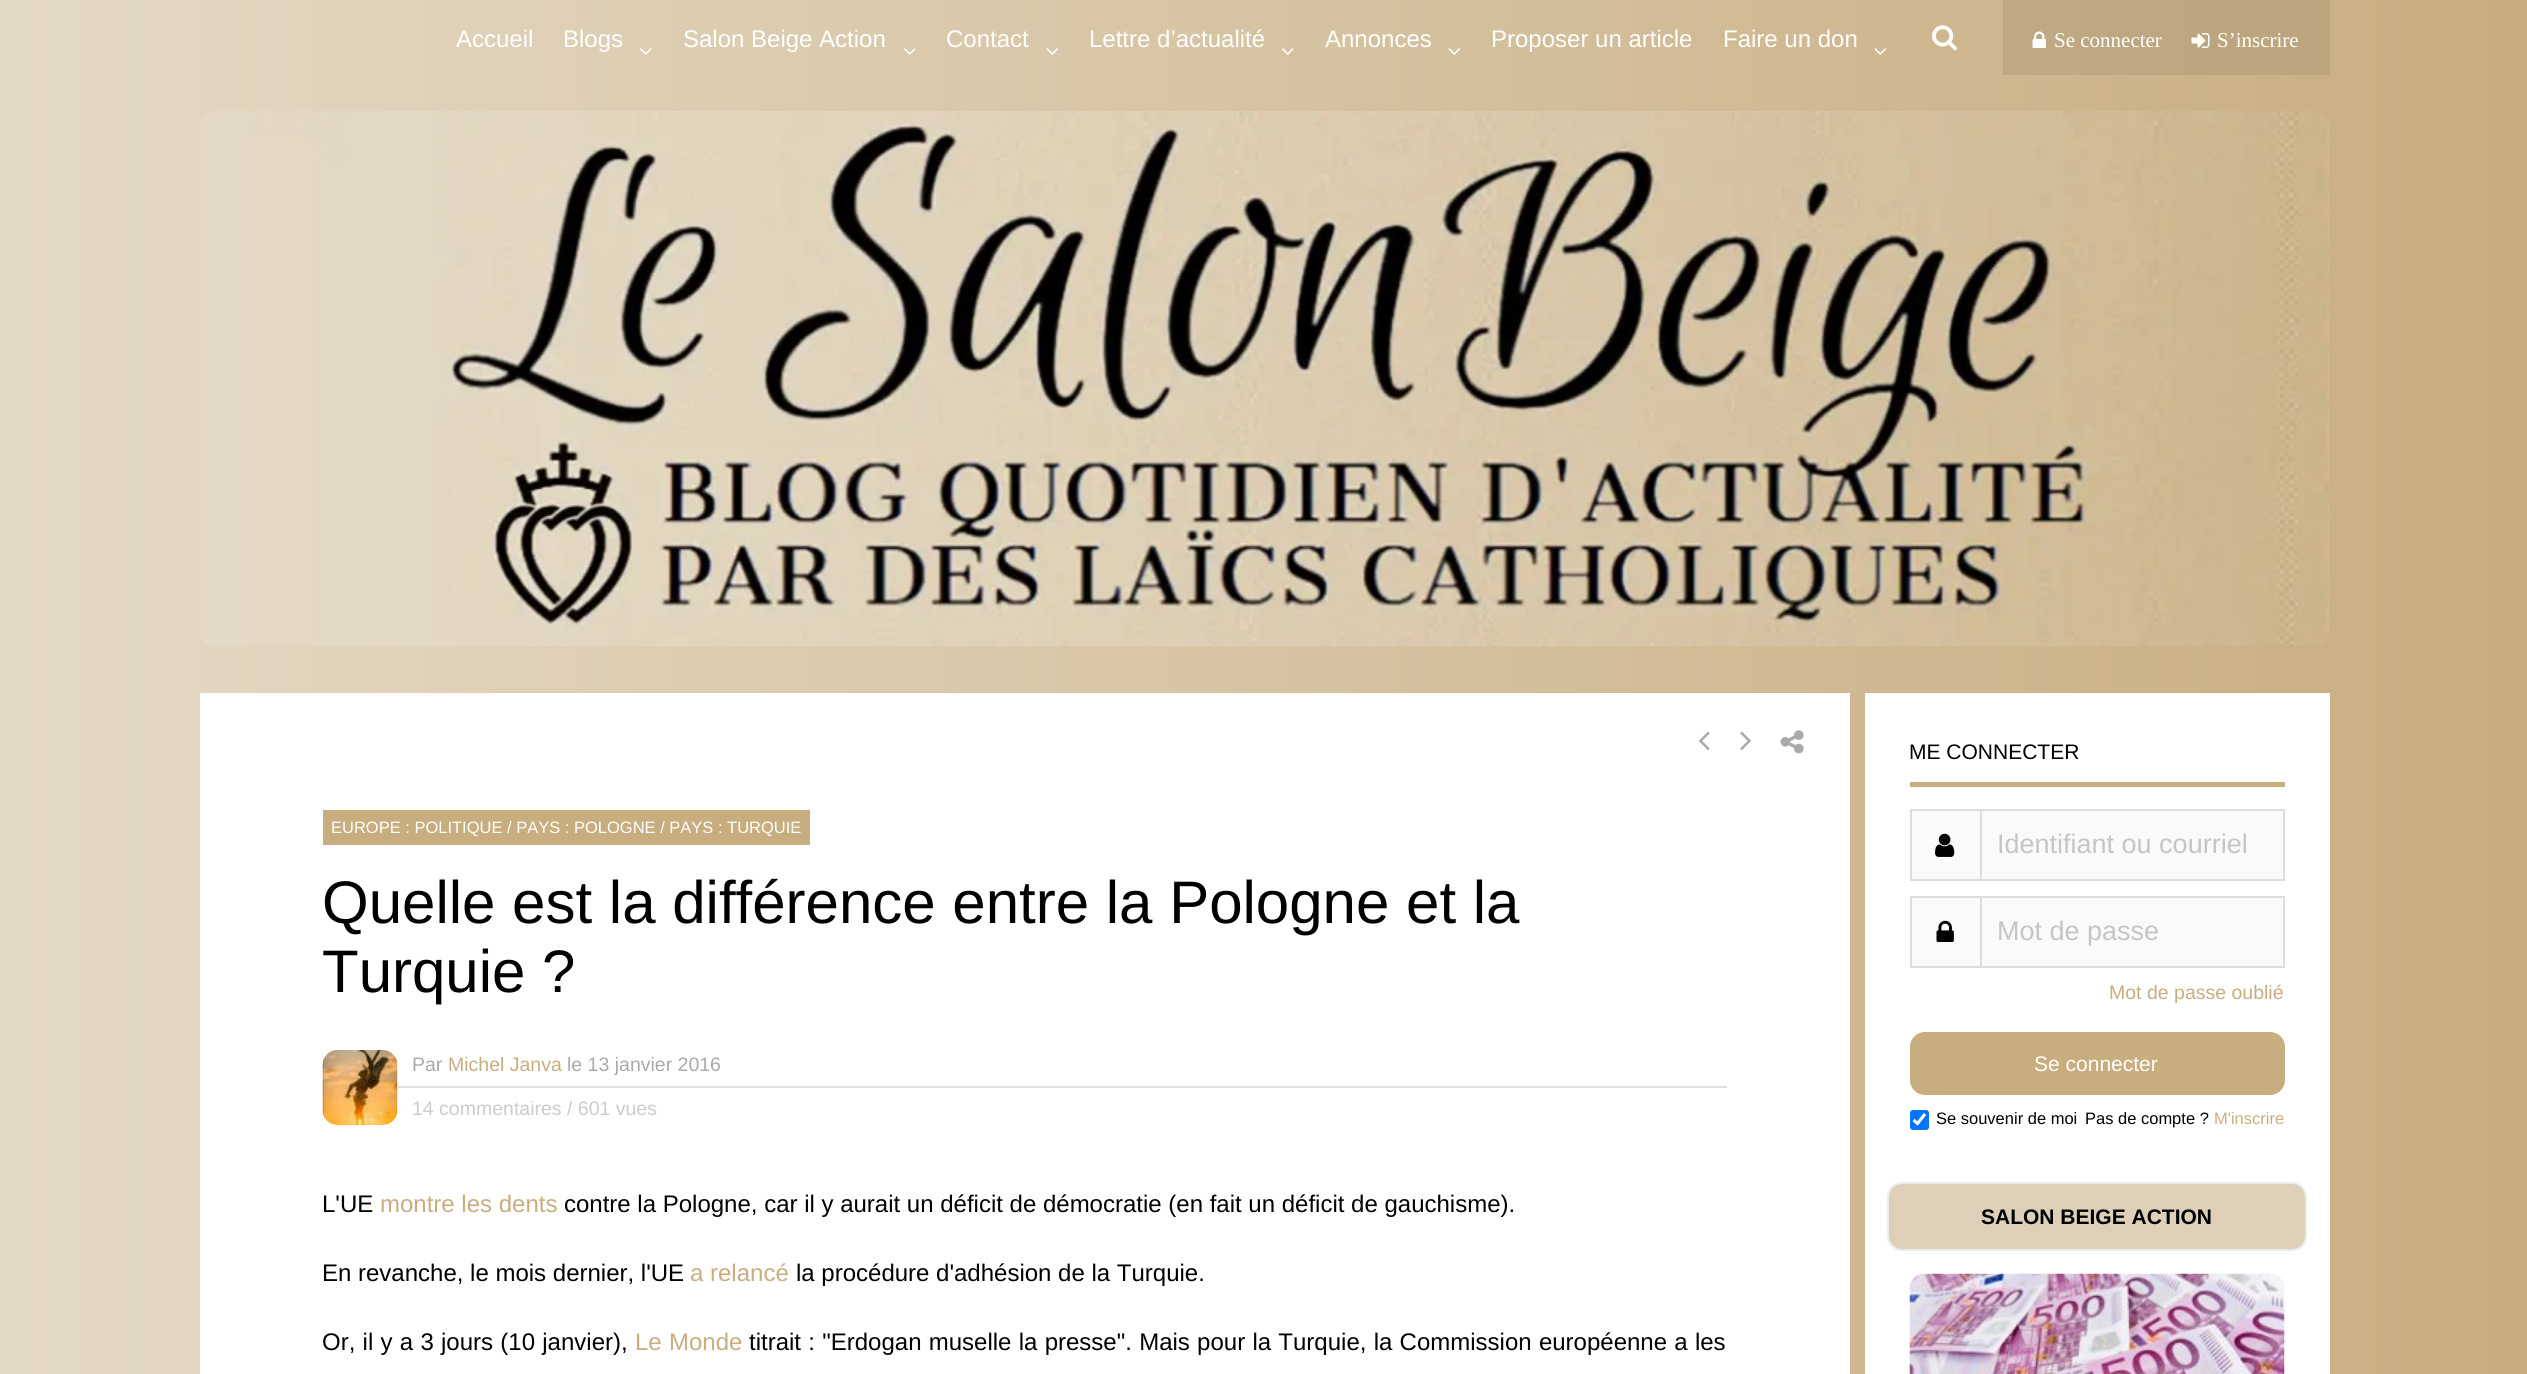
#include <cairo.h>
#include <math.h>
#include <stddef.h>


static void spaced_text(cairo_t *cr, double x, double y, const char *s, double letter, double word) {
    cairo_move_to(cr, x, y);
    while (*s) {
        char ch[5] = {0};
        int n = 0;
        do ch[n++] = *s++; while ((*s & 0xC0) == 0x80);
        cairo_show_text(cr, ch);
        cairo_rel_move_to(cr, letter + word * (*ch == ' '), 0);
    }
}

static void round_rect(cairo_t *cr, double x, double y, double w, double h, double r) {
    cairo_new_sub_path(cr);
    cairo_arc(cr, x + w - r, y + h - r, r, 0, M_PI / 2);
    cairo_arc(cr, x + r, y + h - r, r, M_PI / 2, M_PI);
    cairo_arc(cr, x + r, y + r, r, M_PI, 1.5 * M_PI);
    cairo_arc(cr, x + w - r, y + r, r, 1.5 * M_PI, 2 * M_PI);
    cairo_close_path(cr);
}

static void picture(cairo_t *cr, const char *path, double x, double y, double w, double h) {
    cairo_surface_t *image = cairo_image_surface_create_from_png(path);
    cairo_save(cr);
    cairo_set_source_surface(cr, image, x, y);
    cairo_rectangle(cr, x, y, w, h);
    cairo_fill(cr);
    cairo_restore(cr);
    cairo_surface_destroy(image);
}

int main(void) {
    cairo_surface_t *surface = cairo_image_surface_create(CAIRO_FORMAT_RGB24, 2527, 1374);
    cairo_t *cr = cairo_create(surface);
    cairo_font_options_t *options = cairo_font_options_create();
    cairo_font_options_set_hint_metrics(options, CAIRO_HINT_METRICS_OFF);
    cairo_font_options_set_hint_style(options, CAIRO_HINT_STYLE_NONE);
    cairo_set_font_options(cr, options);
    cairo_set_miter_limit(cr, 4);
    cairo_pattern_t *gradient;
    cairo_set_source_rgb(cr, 1, 1, 1);
    cairo_paint(cr);
    gradient = cairo_pattern_create_linear(0, 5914, 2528, 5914);
    cairo_pattern_add_color_stop_rgba(gradient, 0, 0.894, 0.851, 0.773, 1);
    cairo_pattern_add_color_stop_rgba(gradient, 1, 0.784, 0.678, 0.498, 1);
    cairo_set_source(cr, gradient);
    cairo_pattern_destroy(gradient);
    cairo_rectangle(cr, 0, 0, 2527, 1374);
    cairo_fill(cr);
    gradient = cairo_pattern_create_linear(0, 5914, 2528, 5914);
    cairo_pattern_add_color_stop_rgba(gradient, 0, 0.831, 0.792, 0.718, 1);
    cairo_pattern_add_color_stop_rgba(gradient, 1, 0.729, 0.631, 0.463, 1);
    cairo_set_source(cr, gradient);
    cairo_pattern_destroy(gradient);
    cairo_rectangle(cr, 2003, 0, 327, 75);
    cairo_fill(cr);
    cairo_select_font_face(cr, "Liberation Sans", CAIRO_FONT_SLANT_NORMAL, CAIRO_FONT_WEIGHT_NORMAL);
    cairo_set_font_size(cr, 24);
    cairo_set_source_rgb(cr, 1, 1, 1);
    cairo_move_to(cr, 456, 47);
    cairo_show_text(cr, "Accueil");
    cairo_move_to(cr, 563, 47);
    cairo_show_text(cr, "Blogs");
    picture(cr, "img1.png", 640, 48, 12, 7);
    cairo_move_to(cr, 683, 47);
    cairo_show_text(cr, "Salon Beige Action");
    picture(cr, "img2.png", 904, 48, 12, 7);
    cairo_move_to(cr, 946, 47);
    cairo_show_text(cr, "Contact");
    picture(cr, "img3.png", 1046, 48, 12, 7);
    cairo_move_to(cr, 1089, 47);
    cairo_show_text(cr, "Lettre d’actualité");
    picture(cr, "img4.png", 1282, 48, 12, 7);
    cairo_move_to(cr, 1325, 47);
    cairo_show_text(cr, "Annonces");
    picture(cr, "img5.png", 1448, 48, 12, 7);
    cairo_move_to(cr, 1491, 47);
    cairo_show_text(cr, "Proposer un article");
    cairo_move_to(cr, 1723, 47);
    cairo_show_text(cr, "Faire un don");
    picture(cr, "img6.png", 1874, 48, 12, 7);
    picture(cr, "img7.png", 1932, 25, 25, 26);
    picture(cr, "img8.png", 2032, 31, 14, 17);
    cairo_select_font_face(cr, "Liberation Serif", CAIRO_FONT_SLANT_NORMAL, CAIRO_FONT_WEIGHT_NORMAL);
    cairo_set_font_size(cr, 21);
    cairo_move_to(cr, 2054, 47);
    cairo_show_text(cr, "Se connecter");
    picture(cr, "img9.png", 2191, 33, 19, 15);
    cairo_move_to(cr, 2217, 47);
    cairo_show_text(cr, "S’inscrire");
    picture(cr, "img10.png", 200, 111, 2129, 536);
    cairo_rectangle(cr, 200, 693, 1650, 681);
    cairo_fill(cr);
    picture(cr, "img11.png", 1698, 731, 12, 19);
    picture(cr, "img12.png", 1740, 731, 11, 19);
    picture(cr, "img13.png", 1780, 730, 24, 24);
    cairo_set_source_rgb(cr, 0.784, 0.678, 0.498);
    cairo_rectangle(cr, 323, 810, 487, 35);
    cairo_fill(cr);
    cairo_select_font_face(cr, "Liberation Sans", CAIRO_FONT_SLANT_NORMAL, CAIRO_FONT_WEIGHT_NORMAL);
    cairo_set_font_size(cr, 16.5);
    cairo_set_source_rgb(cr, 1, 1, 1);
    cairo_move_to(cr, 331, 833);
    cairo_show_text(cr, "EUROPE : POLITIQUE / PAYS : POLOGNE / PAYS : TURQUIE");
    cairo_set_font_size(cr, 60);
    cairo_set_source_rgb(cr, 0, 0, 0);
    cairo_move_to(cr, 322, 923);
    cairo_show_text(cr, "Quelle est la différence entre la Pologne et la");
    cairo_move_to(cr, 322, 992);
    cairo_show_text(cr, "Turquie ?");
    picture(cr, "img14.png", 322, 1050, 76, 75);
    cairo_set_source_rgb(cr, 0.878, 0.878, 0.878);
    cairo_rectangle(cr, 398, 1086, 1329, 2);
    cairo_fill(cr);
    cairo_set_font_size(cr, 19.5);
    cairo_set_source_rgb(cr, 0.667, 0.667, 0.667);
    cairo_move_to(cr, 412, 1071);
    cairo_show_text(cr, "Par");
    cairo_set_source_rgb(cr, 0.784, 0.678, 0.498);
    cairo_move_to(cr, 448, 1071);
    cairo_show_text(cr, "Michel Janva");
    cairo_set_source_rgb(cr, 0.667, 0.667, 0.667);
    cairo_move_to(cr, 567, 1071);
    cairo_show_text(cr, "le 13 janvier 2016");
    cairo_set_source_rgb(cr, 0.8, 0.8, 0.8);
    cairo_move_to(cr, 412, 1115);
    cairo_show_text(cr, "14 commentaires / 601 vues");
    cairo_set_font_size(cr, 24);
    cairo_set_source_rgb(cr, 0, 0, 0);
    cairo_move_to(cr, 322, 1212);
    cairo_show_text(cr, "L'UE");
    cairo_set_source_rgb(cr, 0.784, 0.678, 0.498);
    cairo_move_to(cr, 380, 1212);
    cairo_show_text(cr, "montre les dents");
    cairo_set_source_rgb(cr, 0, 0, 0);
    cairo_move_to(cr, 564, 1212);
    cairo_show_text(cr, "contre la Pologne, car il y aurait un déficit de démocratie (en fait un déficit de gauchisme).");
    cairo_move_to(cr, 322, 1281);
    cairo_show_text(cr, "En revanche, le mois dernier, l'UE");
    cairo_set_source_rgb(cr, 0.784, 0.678, 0.498);
    cairo_move_to(cr, 690, 1281);
    cairo_show_text(cr, "a relancé");
    cairo_set_source_rgb(cr, 0, 0, 0);
    cairo_move_to(cr, 796, 1281);
    cairo_show_text(cr, "la procédure d'adhésion de la Turquie.");
    spaced_text(cr, 322, 1350, "Or, il y a 3 jours (10 janvier),", 0, 0.6);
    cairo_set_source_rgb(cr, 0.784, 0.678, 0.498);
    spaced_text(cr, 635, 1350, "Le Monde", 0, 0.6);
    cairo_set_source_rgb(cr, 0, 0, 0);
    spaced_text(cr, 749, 1350, "titrait : \"Erdogan muselle la presse\". Mais pour la Turquie, la Commission européenne a les", 0, 0.6);
    cairo_set_source_rgb(cr, 1, 1, 1);
    cairo_rectangle(cr, 1865, 693, 465, 681);
    cairo_fill(cr);
    cairo_set_source_rgb(cr, 0.784, 0.678, 0.498);
    cairo_rectangle(cr, 1910, 782, 375, 5);
    cairo_fill(cr);
    cairo_set_font_size(cr, 21);
    cairo_set_source_rgb(cr, 0, 0, 0);
    cairo_move_to(cr, 1909, 759);
    cairo_show_text(cr, "ME CONNECTER");
    cairo_set_source_rgb(cr, 0.98, 0.98, 0.98);
    cairo_rectangle(cr, 1911, 810, 373, 70);
    cairo_fill_preserve(cr);
    cairo_set_source_rgb(cr, 0.867, 0.867, 0.867);
    cairo_stroke(cr);
    cairo_rectangle(cr, 1911, 810, 70, 70);
    cairo_stroke(cr);
    picture(cr, "img15.png", 1935, 833, 20, 24);
    cairo_set_font_size(cr, 27);
    cairo_set_source_rgb(cr, 0.773, 0.773, 0.773);
    cairo_move_to(cr, 1997, 853);
    cairo_show_text(cr, "Identifiant ou courriel");
    cairo_set_source_rgb(cr, 0.98, 0.98, 0.98);
    cairo_rectangle(cr, 1911, 897, 373, 70);
    cairo_fill_preserve(cr);
    cairo_set_source_rgb(cr, 0.867, 0.867, 0.867);
    cairo_stroke(cr);
    cairo_rectangle(cr, 1911, 897, 70, 70);
    cairo_stroke(cr);
    picture(cr, "img16.png", 1936, 920, 18, 22);
    cairo_set_source_rgb(cr, 0.773, 0.773, 0.773);
    cairo_move_to(cr, 1997, 940);
    cairo_show_text(cr, "Mot de passe");
    cairo_set_font_size(cr, 19.5);
    cairo_set_source_rgb(cr, 0.784, 0.678, 0.498);
    cairo_move_to(cr, 2109, 999);
    cairo_show_text(cr, "Mot de passe oublié");
    round_rect(cr, 1910, 1032, 375, 63, 15);
    cairo_fill(cr);
    cairo_set_font_size(cr, 21);
    cairo_set_source_rgb(cr, 1, 1, 1);
    cairo_move_to(cr, 2034, 1071);
    cairo_show_text(cr, "Se connecter");
    cairo_set_source_rgb(cr, 0, 0.459, 1);
    round_rect(cr, 1910, 1110, 19, 20, 3);
    cairo_fill(cr);
    cairo_new_path(cr);
    cairo_move_to(cr, 1913.5, 1120);
    cairo_line_to(cr, 1917.5, 1123.5);
    cairo_line_to(cr, 1925, 1114);
    cairo_set_source_rgb(cr, 1, 1, 1);
    cairo_set_line_width(cr, 3.1);
    cairo_stroke(cr);
    cairo_set_font_size(cr, 16.5);
    cairo_set_source_rgb(cr, 0, 0, 0);
    cairo_move_to(cr, 1936, 1124);
    cairo_show_text(cr, "Se souvenir de moi");
    cairo_move_to(cr, 2085, 1124);
    cairo_show_text(cr, "Pas de compte ?");
    cairo_set_source_rgb(cr, 0.784, 0.678, 0.498);
    cairo_move_to(cr, 2214, 1124);
    cairo_show_text(cr, "M'inscrire");
    cairo_set_source_rgb(cr, 0.871, 0.816, 0.722);
    round_rect(cr, 1888, 1183, 418, 67, 14);
    cairo_fill_preserve(cr);
    cairo_set_source_rgb(cr, 0.922, 0.922, 0.922);
    cairo_set_line_width(cr, 2);
    cairo_stroke(cr);
    cairo_select_font_face(cr, "Liberation Sans", CAIRO_FONT_SLANT_NORMAL, CAIRO_FONT_WEIGHT_BOLD);
    cairo_set_font_size(cr, 21);
    cairo_set_source_rgb(cr, 0, 0, 0);
    cairo_move_to(cr, 1981, 1224);
    cairo_show_text(cr, "SALON BEIGE ACTION");
    picture(cr, "img17.png", 1909, 1273, 376, 101);
    cairo_surface_write_to_png(surface, "page.png");
    cairo_font_options_destroy(options);
    cairo_destroy(cr);
    cairo_surface_destroy(surface);
    return 0;
}
